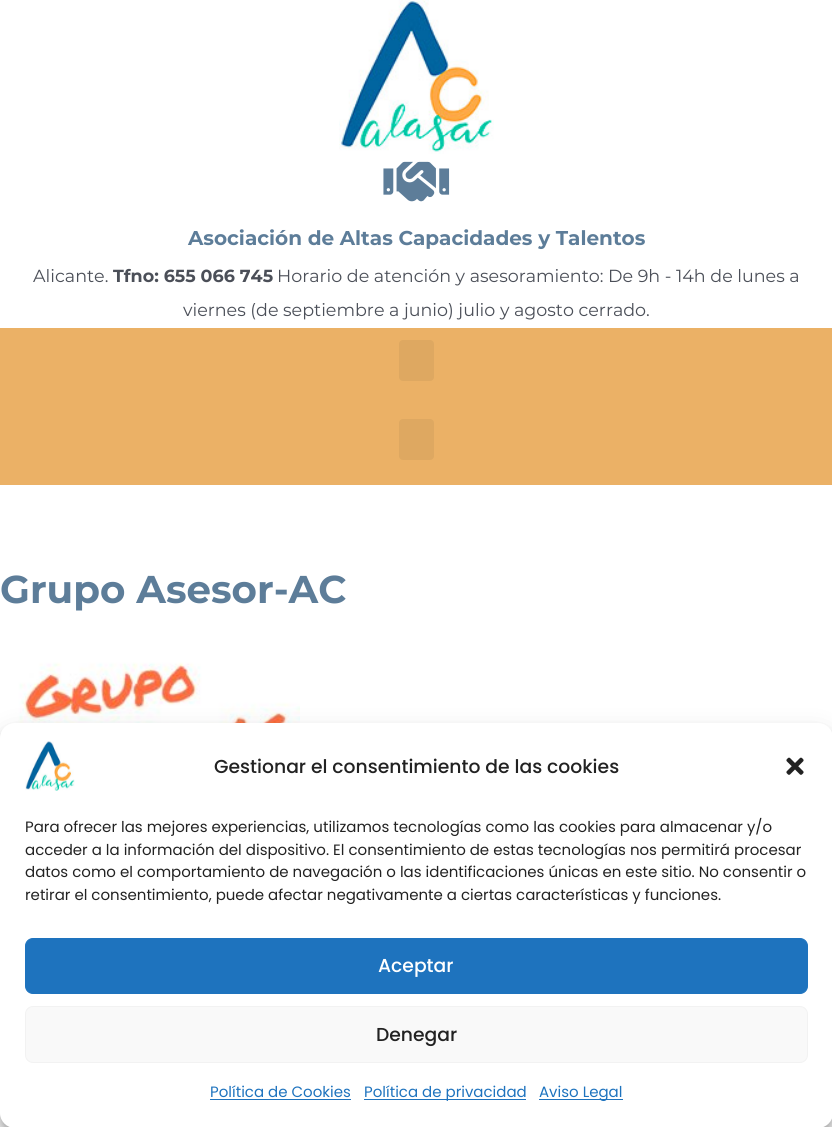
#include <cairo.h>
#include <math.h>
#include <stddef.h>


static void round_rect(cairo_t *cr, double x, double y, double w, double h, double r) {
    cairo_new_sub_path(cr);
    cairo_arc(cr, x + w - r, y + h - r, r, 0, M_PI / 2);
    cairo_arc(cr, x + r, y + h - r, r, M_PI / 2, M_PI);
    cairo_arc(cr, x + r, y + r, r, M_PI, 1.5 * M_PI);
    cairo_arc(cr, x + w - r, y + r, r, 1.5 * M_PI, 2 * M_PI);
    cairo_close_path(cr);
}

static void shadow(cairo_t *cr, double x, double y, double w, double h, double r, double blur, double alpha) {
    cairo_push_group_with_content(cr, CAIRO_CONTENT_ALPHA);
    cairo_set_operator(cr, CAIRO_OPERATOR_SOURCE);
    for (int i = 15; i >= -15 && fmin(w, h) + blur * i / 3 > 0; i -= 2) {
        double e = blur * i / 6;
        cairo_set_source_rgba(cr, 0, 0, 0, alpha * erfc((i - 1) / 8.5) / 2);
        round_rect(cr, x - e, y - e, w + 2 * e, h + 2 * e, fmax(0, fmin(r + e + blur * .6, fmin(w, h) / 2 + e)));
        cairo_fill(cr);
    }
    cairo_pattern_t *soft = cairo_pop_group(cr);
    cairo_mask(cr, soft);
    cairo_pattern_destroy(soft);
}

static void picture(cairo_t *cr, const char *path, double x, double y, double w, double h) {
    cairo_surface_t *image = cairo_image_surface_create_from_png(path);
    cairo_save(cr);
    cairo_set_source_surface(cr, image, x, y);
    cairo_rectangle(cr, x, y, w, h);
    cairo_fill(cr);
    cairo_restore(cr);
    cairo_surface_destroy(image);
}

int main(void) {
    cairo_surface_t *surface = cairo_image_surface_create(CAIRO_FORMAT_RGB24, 832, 1127);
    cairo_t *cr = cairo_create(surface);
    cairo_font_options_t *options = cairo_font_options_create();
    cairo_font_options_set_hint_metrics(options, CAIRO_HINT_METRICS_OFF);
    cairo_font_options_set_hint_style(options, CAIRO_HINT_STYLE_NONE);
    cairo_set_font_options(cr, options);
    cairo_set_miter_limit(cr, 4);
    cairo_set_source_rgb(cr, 1, 1, 1);
    cairo_paint(cr);
    picture(cr, "img1.png", 339, 0, 155, 154);
    picture(cr, "img2.png", 383, 161, 67, 41);
    cairo_select_font_face(cr, "Montserrat", CAIRO_FONT_SLANT_NORMAL, CAIRO_FONT_WEIGHT_BOLD);
    cairo_set_font_size(cr, 20);
    cairo_set_source_rgb(cr, 0.365, 0.49, 0.6);
    cairo_move_to(cr, 188, 245);
    cairo_show_text(cr, "Asociación de Altas Capacidades y Talentos");
    cairo_select_font_face(cr, "Montserrat", CAIRO_FONT_SLANT_NORMAL, CAIRO_FONT_WEIGHT_NORMAL);
    cairo_set_font_size(cr, 17.5);
    cairo_set_source_rgb(cr, 0.294, 0.31, 0.345);
    cairo_move_to(cr, 33, 282);
    cairo_show_text(cr, "Alicante.");
    cairo_select_font_face(cr, "Montserrat", CAIRO_FONT_SLANT_NORMAL, CAIRO_FONT_WEIGHT_BOLD);
    cairo_move_to(cr, 113, 282);
    cairo_show_text(cr, "Tfno: 655 066 745");
    cairo_select_font_face(cr, "Montserrat", CAIRO_FONT_SLANT_NORMAL, CAIRO_FONT_WEIGHT_NORMAL);
    cairo_move_to(cr, 277, 282);
    cairo_show_text(cr, "Horario de atención y asesoramiento: De 9h - 14h de lunes a");
    cairo_move_to(cr, 183, 316);
    cairo_show_text(cr, "viernes (de septiembre a junio) julio y agosto cerrado.");
    cairo_set_source_rgb(cr, 0.918, 0.694, 0.4);
    cairo_rectangle(cr, 0, 328, 832, 157);
    cairo_fill(cr);
    cairo_set_source_rgb(cr, 0.871, 0.659, 0.38);
    round_rect(cr, 399, 340, 35, 41, 4);
    cairo_fill(cr);
    round_rect(cr, 399, 419, 35, 41, 4);
    cairo_fill(cr);
    cairo_select_font_face(cr, "Montserrat", CAIRO_FONT_SLANT_NORMAL, CAIRO_FONT_WEIGHT_BOLD);
    cairo_set_font_size(cr, 38.75);
    cairo_set_source_rgb(cr, 0.365, 0.49, 0.6);
    cairo_move_to(cr, 0, 603);
    cairo_show_text(cr, "Grupo Asesor-AC");
    picture(cr, "img3.png", 0, 662, 300, 76);
    cairo_set_source_rgb(cr, 0, 0, 0);
    shadow(cr, 0, 730, 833, 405, 15, 4, 0.23);
    shadow(cr, 0, 735, 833, 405, 15, 12.5, 0.19);
    cairo_set_source_rgb(cr, 1, 1, 1);
    round_rect(cr, 0, 723, 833, 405, 15);
    cairo_fill(cr);
    picture(cr, "img4.png", 25, 741, 50, 50);
    cairo_select_font_face(cr, "Poppins Medium", CAIRO_FONT_SLANT_NORMAL, CAIRO_FONT_WEIGHT_NORMAL);
    cairo_set_font_size(cr, 18.75);
    cairo_set_source_rgb(cr, 0.133, 0.133, 0.133);
    cairo_move_to(cr, 214, 773);
    cairo_show_text(cr, "Gestionar el consentimiento de las cookies");
    picture(cr, "img5.png", 786, 757, 18, 18);
    cairo_select_font_face(cr, "Poppins", CAIRO_FONT_SLANT_NORMAL, CAIRO_FONT_WEIGHT_NORMAL);
    cairo_set_font_size(cr, 15);
    cairo_move_to(cr, 25, 832);
    cairo_show_text(cr, "Para ofrecer las mejores experiencias, utilizamos tecnologías como las cookies para almacenar y/o");
    cairo_move_to(cr, 25, 855);
    cairo_show_text(cr, "acceder a la información del dispositivo. El consentimiento de estas tecnologías nos permitirá procesar");
    cairo_move_to(cr, 25, 877);
    cairo_show_text(cr, "datos como el comportamiento de navegación o las identificaciones únicas en este sitio. No consentir o");
    cairo_move_to(cr, 25, 900);
    cairo_show_text(cr, "retirar el consentimiento, puede afectar negativamente a ciertas características y funciones.");
    cairo_set_source_rgb(cr, 0.118, 0.451, 0.745);
    round_rect(cr, 25.5, 938.5, 782, 55, 7.5);
    cairo_fill_preserve(cr);
    cairo_set_line_width(cr, 1);
    cairo_stroke(cr);
    cairo_select_font_face(cr, "Poppins Medium", CAIRO_FONT_SLANT_NORMAL, CAIRO_FONT_WEIGHT_NORMAL);
    cairo_set_font_size(cr, 18.75);
    cairo_set_source_rgb(cr, 1, 1, 1);
    cairo_move_to(cr, 378, 972);
    cairo_show_text(cr, "Aceptar");
    cairo_set_source_rgb(cr, 0.976, 0.976, 0.976);
    round_rect(cr, 25.5, 1006.5, 782, 56, 7.5);
    cairo_fill_preserve(cr);
    cairo_set_source_rgb(cr, 0.949, 0.949, 0.949);
    cairo_stroke(cr);
    cairo_set_source_rgb(cr, 0.133, 0.133, 0.133);
    cairo_move_to(cr, 376, 1041);
    cairo_show_text(cr, "Denegar");
    cairo_select_font_face(cr, "Poppins", CAIRO_FONT_SLANT_NORMAL, CAIRO_FONT_WEIGHT_NORMAL);
    cairo_set_font_size(cr, 15);
    cairo_set_source_rgb(cr, 0.118, 0.451, 0.745);
    cairo_move_to(cr, 210, 1097);
    cairo_show_text(cr, "Política de Cookies");
    cairo_rectangle(cr, 210, 1099, 141, 1);
    cairo_fill(cr);
    cairo_rectangle(cr, 364, 1099, 162, 1);
    cairo_fill(cr);
    cairo_move_to(cr, 364, 1097);
    cairo_show_text(cr, "Política de privacidad");
    cairo_rectangle(cr, 539, 1099, 84, 1);
    cairo_fill(cr);
    cairo_move_to(cr, 539, 1097);
    cairo_show_text(cr, "Aviso Legal");
    cairo_surface_write_to_png(surface, "page.png");
    cairo_font_options_destroy(options);
    cairo_destroy(cr);
    cairo_surface_destroy(surface);
    return 0;
}
